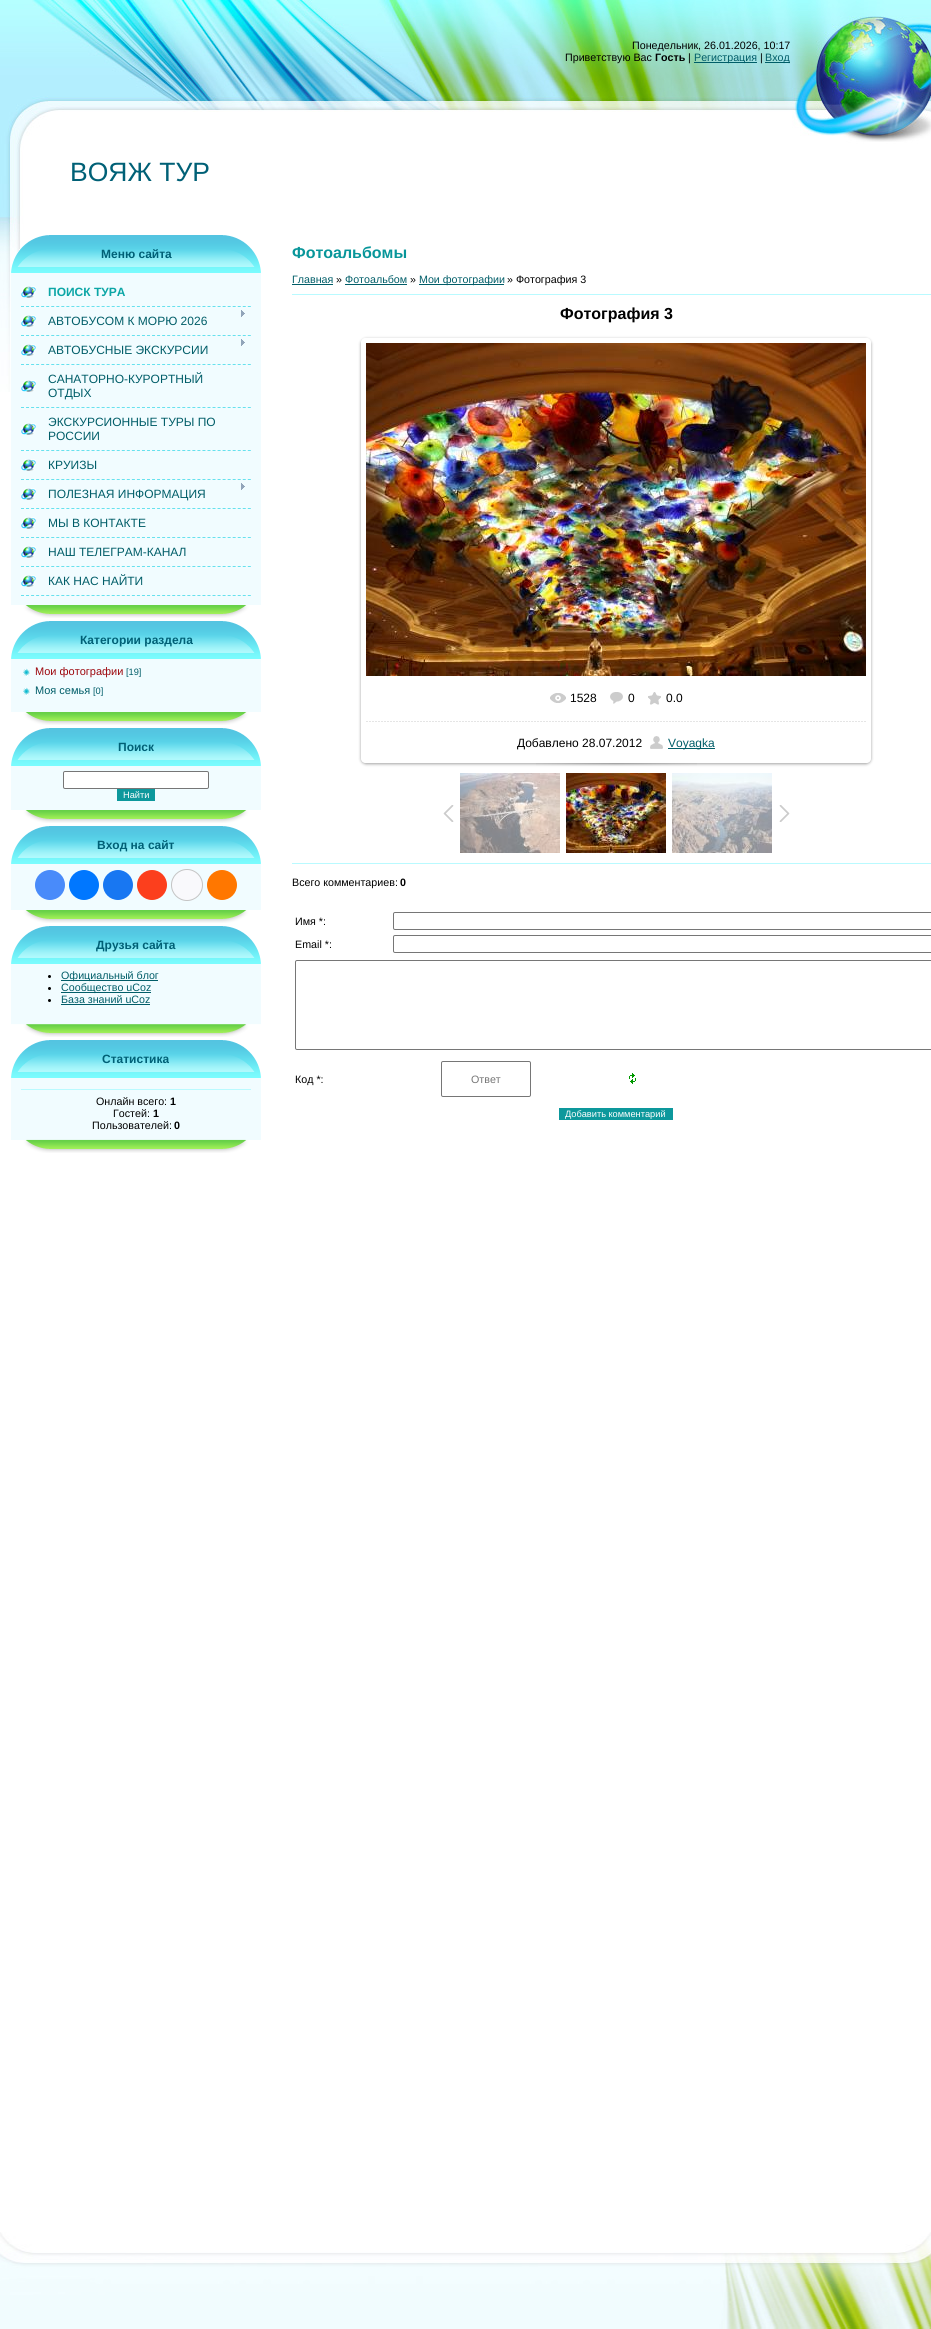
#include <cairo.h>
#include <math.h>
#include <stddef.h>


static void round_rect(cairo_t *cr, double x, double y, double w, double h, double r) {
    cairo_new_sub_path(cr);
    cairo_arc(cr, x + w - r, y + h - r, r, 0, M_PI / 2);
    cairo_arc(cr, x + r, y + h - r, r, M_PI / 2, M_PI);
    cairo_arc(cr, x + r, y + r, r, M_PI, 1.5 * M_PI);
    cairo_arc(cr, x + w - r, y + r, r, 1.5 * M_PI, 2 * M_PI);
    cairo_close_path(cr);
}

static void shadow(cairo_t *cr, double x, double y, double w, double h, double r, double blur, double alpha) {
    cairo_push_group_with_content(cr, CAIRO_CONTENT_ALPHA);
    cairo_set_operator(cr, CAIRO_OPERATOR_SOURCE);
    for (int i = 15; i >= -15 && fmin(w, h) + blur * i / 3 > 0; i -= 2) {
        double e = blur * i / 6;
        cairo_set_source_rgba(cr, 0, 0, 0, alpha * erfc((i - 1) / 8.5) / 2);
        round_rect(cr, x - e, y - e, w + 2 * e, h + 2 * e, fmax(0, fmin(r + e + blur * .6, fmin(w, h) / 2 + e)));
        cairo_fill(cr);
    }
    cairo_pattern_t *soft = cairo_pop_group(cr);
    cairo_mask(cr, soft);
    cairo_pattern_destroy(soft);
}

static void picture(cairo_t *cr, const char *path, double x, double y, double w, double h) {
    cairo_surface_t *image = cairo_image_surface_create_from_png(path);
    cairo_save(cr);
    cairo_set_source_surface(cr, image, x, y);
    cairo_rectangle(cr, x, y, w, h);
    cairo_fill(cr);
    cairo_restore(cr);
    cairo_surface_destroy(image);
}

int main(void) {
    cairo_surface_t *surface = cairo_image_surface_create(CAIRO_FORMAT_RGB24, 931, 2329);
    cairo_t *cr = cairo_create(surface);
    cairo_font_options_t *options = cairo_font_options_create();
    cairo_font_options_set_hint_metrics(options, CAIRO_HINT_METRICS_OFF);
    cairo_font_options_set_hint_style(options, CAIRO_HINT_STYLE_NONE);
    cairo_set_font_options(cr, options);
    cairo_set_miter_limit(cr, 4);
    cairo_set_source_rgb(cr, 1, 1, 1);
    cairo_paint(cr);
    picture(cr, "img1.png", 0, 2232, 931, 97);
    picture(cr, "img2.png", 0, 0, 931, 392);
    cairo_select_font_face(cr, "Liberation Sans", CAIRO_FONT_SLANT_NORMAL, CAIRO_FONT_WEIGHT_NORMAL);
    cairo_set_font_size(cr, 10.7);
    cairo_set_source_rgb(cr, 0, 0, 0);
    cairo_move_to(cr, 632, 49);
    cairo_show_text(cr, "Понедельник, 26.01.2026, 10:17");
    cairo_move_to(cr, 565, 61);
    cairo_show_text(cr, "Приветствую Вас");
    cairo_select_font_face(cr, "Liberation Sans", CAIRO_FONT_SLANT_NORMAL, CAIRO_FONT_WEIGHT_BOLD);
    cairo_move_to(cr, 655, 61);
    cairo_show_text(cr, "Гость");
    cairo_select_font_face(cr, "Liberation Sans", CAIRO_FONT_SLANT_NORMAL, CAIRO_FONT_WEIGHT_NORMAL);
    cairo_move_to(cr, 688, 61);
    cairo_show_text(cr, "|");
    cairo_set_source_rgb(cr, 0, 0.365, 0.408);
    cairo_rectangle(cr, 694, 62, 63, 1);
    cairo_fill(cr);
    cairo_move_to(cr, 694, 61);
    cairo_show_text(cr, "Регистрация");
    cairo_set_source_rgb(cr, 0, 0, 0);
    cairo_move_to(cr, 760, 61);
    cairo_show_text(cr, "|");
    cairo_set_source_rgb(cr, 0, 0.365, 0.408);
    cairo_rectangle(cr, 765, 62, 25, 1);
    cairo_fill(cr);
    cairo_move_to(cr, 765, 61);
    cairo_show_text(cr, "Вход");
    cairo_set_font_size(cr, 26.5);
    cairo_set_source_rgb(cr, 0, 0.376, 0.463);
    cairo_move_to(cr, 70, 181);
    cairo_show_text(cr, "ВОЯЖ ТУР");
    picture(cr, "img3.png", 11, 235, 250, 38);
    cairo_select_font_face(cr, "Liberation Sans", CAIRO_FONT_SLANT_NORMAL, CAIRO_FONT_WEIGHT_BOLD);
    cairo_set_font_size(cr, 12);
    cairo_move_to(cr, 101, 258);
    cairo_show_text(cr, "Меню сайта");
    picture(cr, "img4.png", 11, 273, 250, 345);
    picture(cr, "img5.png", 21, 286, 15, 12);
    cairo_new_path(cr);
    cairo_move_to(cr, 21, 306.5);
    cairo_line_to(cr, 251, 306.5);
    cairo_set_source_rgb(cr, 0.404, 0.882, 0.933);
    cairo_set_line_width(cr, 1);
    cairo_set_dash(cr, (double[]){3, 2.04}, 2, 0);
    cairo_stroke(cr);
    cairo_set_source_rgb(cr, 0.047, 0.651, 0.651);
    cairo_move_to(cr, 48, 296);
    cairo_show_text(cr, "ПОИСК ТУРА");
    picture(cr, "img5.png", 21, 315, 15, 12);
    cairo_new_path(cr);
    cairo_move_to(cr, 21, 335.5);
    cairo_line_to(cr, 251, 335.5);
    cairo_set_source_rgb(cr, 0.404, 0.882, 0.933);
    cairo_stroke(cr);
    picture(cr, "img6.png", 241, 310, 4, 7);
    cairo_select_font_face(cr, "Liberation Sans", CAIRO_FONT_SLANT_NORMAL, CAIRO_FONT_WEIGHT_NORMAL);
    cairo_set_source_rgb(cr, 0, 0.365, 0.408);
    cairo_move_to(cr, 48, 325);
    cairo_show_text(cr, "АВТОБУСОМ К МОРЮ 2026");
    picture(cr, "img5.png", 21, 344, 15, 12);
    cairo_new_path(cr);
    cairo_move_to(cr, 21, 364.5);
    cairo_line_to(cr, 251, 364.5);
    cairo_set_source_rgb(cr, 0.404, 0.882, 0.933);
    cairo_stroke(cr);
    picture(cr, "img6.png", 241, 339, 4, 7);
    cairo_set_source_rgb(cr, 0, 0.365, 0.408);
    cairo_move_to(cr, 48, 354);
    cairo_show_text(cr, "АВТОБУСНЫЕ ЭКСКУРСИИ");
    picture(cr, "img5.png", 21, 380, 15, 12);
    cairo_new_path(cr);
    cairo_move_to(cr, 21, 407.5);
    cairo_line_to(cr, 251, 407.5);
    cairo_set_source_rgb(cr, 0.404, 0.882, 0.933);
    cairo_stroke(cr);
    cairo_set_source_rgb(cr, 0, 0.365, 0.408);
    cairo_move_to(cr, 48, 383);
    cairo_show_text(cr, "САНАТОРНО-КУРОРТНЫЙ");
    cairo_move_to(cr, 48, 397);
    cairo_show_text(cr, "ОТДЫХ");
    picture(cr, "img5.png", 21, 423, 15, 12);
    cairo_new_path(cr);
    cairo_move_to(cr, 21, 450.5);
    cairo_line_to(cr, 251, 450.5);
    cairo_set_source_rgb(cr, 0.404, 0.882, 0.933);
    cairo_stroke(cr);
    cairo_set_source_rgb(cr, 0, 0.365, 0.408);
    cairo_move_to(cr, 48, 426);
    cairo_show_text(cr, "ЭКСКУРСИОННЫЕ ТУРЫ ПО");
    cairo_move_to(cr, 48, 440);
    cairo_show_text(cr, "РОССИИ");
    picture(cr, "img5.png", 21, 459, 15, 12);
    cairo_new_path(cr);
    cairo_move_to(cr, 21, 479.5);
    cairo_line_to(cr, 251, 479.5);
    cairo_set_source_rgb(cr, 0.404, 0.882, 0.933);
    cairo_stroke(cr);
    cairo_set_source_rgb(cr, 0, 0.365, 0.408);
    cairo_move_to(cr, 48, 469);
    cairo_show_text(cr, "КРУИЗЫ");
    picture(cr, "img5.png", 21, 488, 15, 12);
    cairo_new_path(cr);
    cairo_move_to(cr, 21, 508.5);
    cairo_line_to(cr, 251, 508.5);
    cairo_set_source_rgb(cr, 0.404, 0.882, 0.933);
    cairo_stroke(cr);
    picture(cr, "img6.png", 241, 483, 4, 7);
    cairo_set_source_rgb(cr, 0, 0.365, 0.408);
    cairo_move_to(cr, 48, 498);
    cairo_show_text(cr, "ПОЛЕЗНАЯ ИНФОРМАЦИЯ");
    picture(cr, "img5.png", 21, 517, 15, 12);
    cairo_new_path(cr);
    cairo_move_to(cr, 21, 537.5);
    cairo_line_to(cr, 251, 537.5);
    cairo_set_source_rgb(cr, 0.404, 0.882, 0.933);
    cairo_stroke(cr);
    cairo_set_source_rgb(cr, 0, 0.365, 0.408);
    cairo_move_to(cr, 48, 527);
    cairo_show_text(cr, "МЫ В КОНТАКТЕ");
    picture(cr, "img5.png", 21, 546, 15, 12);
    cairo_new_path(cr);
    cairo_move_to(cr, 21, 566.5);
    cairo_line_to(cr, 251, 566.5);
    cairo_set_source_rgb(cr, 0.404, 0.882, 0.933);
    cairo_stroke(cr);
    cairo_set_source_rgb(cr, 0, 0.365, 0.408);
    cairo_move_to(cr, 48, 556);
    cairo_show_text(cr, "НАШ ТЕЛЕГРАМ-КАНАЛ");
    picture(cr, "img5.png", 21, 575, 15, 12);
    cairo_new_path(cr);
    cairo_move_to(cr, 21, 595.5);
    cairo_line_to(cr, 251, 595.5);
    cairo_set_source_rgb(cr, 0.404, 0.882, 0.933);
    cairo_stroke(cr);
    cairo_set_source_rgb(cr, 0, 0.365, 0.408);
    cairo_move_to(cr, 48, 585);
    cairo_show_text(cr, "КАК НАС НАЙТИ");
    picture(cr, "img7.png", 11, 621, 250, 38);
    cairo_select_font_face(cr, "Liberation Sans", CAIRO_FONT_SLANT_NORMAL, CAIRO_FONT_WEIGHT_BOLD);
    cairo_set_source_rgb(cr, 0, 0.376, 0.463);
    cairo_move_to(cr, 80, 644);
    cairo_show_text(cr, "Категории раздела");
    picture(cr, "img8.png", 11, 659, 250, 66);
    picture(cr, "img9.png", 23, 668, 8, 9);
    cairo_select_font_face(cr, "Liberation Sans", CAIRO_FONT_SLANT_NORMAL, CAIRO_FONT_WEIGHT_NORMAL);
    cairo_set_font_size(cr, 11);
    cairo_set_source_rgb(cr, 0.616, 0.031, 0.051);
    cairo_move_to(cr, 35, 675);
    cairo_show_text(cr, "Мои фотографии");
    cairo_set_font_size(cr, 9.25);
    cairo_set_source_rgb(cr, 0, 0.365, 0.408);
    cairo_move_to(cr, 126, 675);
    cairo_show_text(cr, "[19]");
    picture(cr, "img9.png", 23, 687, 8, 9);
    cairo_set_font_size(cr, 11);
    cairo_move_to(cr, 35, 694);
    cairo_show_text(cr, "Моя семья");
    cairo_set_font_size(cr, 9.25);
    cairo_move_to(cr, 93, 694);
    cairo_show_text(cr, "[0]");
    picture(cr, "img7.png", 11, 728, 250, 38);
    cairo_select_font_face(cr, "Liberation Sans", CAIRO_FONT_SLANT_NORMAL, CAIRO_FONT_WEIGHT_BOLD);
    cairo_set_font_size(cr, 12);
    cairo_set_source_rgb(cr, 0, 0.376, 0.463);
    cairo_move_to(cr, 118, 751);
    cairo_show_text(cr, "Поиск");
    picture(cr, "img10.png", 11, 766, 250, 57);
    cairo_set_source_rgb(cr, 1, 1, 1);
    round_rect(cr, 63.5, 771.5, 145, 17, 1.5);
    cairo_fill_preserve(cr);
    cairo_set_source_rgb(cr, 0.463, 0.463, 0.463);
    cairo_set_dash(cr, NULL, 0, 0);
    cairo_stroke(cr);
    cairo_set_source_rgb(cr, 0.051, 0.596, 0.612);
    cairo_rectangle(cr, 117, 789, 38, 12);
    cairo_fill(cr);
    cairo_select_font_face(cr, "Liberation Sans", CAIRO_FONT_SLANT_NORMAL, CAIRO_FONT_WEIGHT_NORMAL);
    cairo_set_font_size(cr, 9.25);
    cairo_set_source_rgb(cr, 1, 1, 1);
    cairo_move_to(cr, 123, 798);
    cairo_show_text(cr, "Найти");
    picture(cr, "img7.png", 11, 826, 250, 38);
    cairo_select_font_face(cr, "Liberation Sans", CAIRO_FONT_SLANT_NORMAL, CAIRO_FONT_WEIGHT_BOLD);
    cairo_set_font_size(cr, 12);
    cairo_set_source_rgb(cr, 0, 0.376, 0.463);
    cairo_move_to(cr, 97, 849);
    cairo_show_text(cr, "Вход на сайт");
    picture(cr, "img11.png", 11, 864, 250, 59);
    cairo_set_source_rgb(cr, 0.286, 0.545, 0.98);
    cairo_arc(cr, 50, 885, 15, 0, 2 * M_PI);
    cairo_fill(cr);
    cairo_set_source_rgb(cr, 0, 0.467, 1);
    cairo_arc(cr, 84, 885, 15, 0, 2 * M_PI);
    cairo_fill(cr);
    cairo_set_source_rgb(cr, 0.094, 0.467, 0.949);
    cairo_arc(cr, 118, 885, 15, 0, 2 * M_PI);
    cairo_fill(cr);
    cairo_set_source_rgb(cr, 0.988, 0.247, 0.114);
    cairo_arc(cr, 152, 885, 15, 0, 2 * M_PI);
    cairo_fill(cr);
    cairo_set_source_rgb(cr, 0.973, 0.973, 0.988);
    cairo_arc(cr, 187, 885, 15.5, 0, 2 * M_PI);
    cairo_fill_preserve(cr);
    cairo_set_source_rgb(cr, 0.769, 0.769, 0.769);
    cairo_stroke(cr);
    cairo_set_source_rgb(cr, 1, 0.467, 0);
    cairo_arc(cr, 222, 885, 15, 0, 2 * M_PI);
    cairo_fill(cr);
    picture(cr, "img7.png", 11, 926, 250, 38);
    cairo_set_source_rgb(cr, 0, 0.376, 0.463);
    cairo_move_to(cr, 96, 949);
    cairo_show_text(cr, "Друзья сайта");
    picture(cr, "img12.png", 11, 964, 250, 73);
    cairo_set_source_rgb(cr, 0, 0, 0);
    cairo_arc(cr, 49.5, 976.5, 1.5, 0, 2 * M_PI);
    cairo_fill(cr);
    cairo_set_source_rgb(cr, 0, 0.365, 0.408);
    cairo_rectangle(cr, 61, 980, 97, 1);
    cairo_fill(cr);
    cairo_select_font_face(cr, "Liberation Sans", CAIRO_FONT_SLANT_NORMAL, CAIRO_FONT_WEIGHT_NORMAL);
    cairo_set_font_size(cr, 10.7);
    cairo_move_to(cr, 61, 979);
    cairo_show_text(cr, "Официальный блог");
    cairo_set_source_rgb(cr, 0, 0, 0);
    cairo_new_path(cr);
    cairo_arc(cr, 49.5, 988.5, 1.5, 0, 2 * M_PI);
    cairo_fill(cr);
    cairo_set_source_rgb(cr, 0, 0.365, 0.408);
    cairo_rectangle(cr, 61, 992, 90, 1);
    cairo_fill(cr);
    cairo_move_to(cr, 61, 991);
    cairo_show_text(cr, "Сообщество uCoz");
    cairo_set_source_rgb(cr, 0, 0, 0);
    cairo_new_path(cr);
    cairo_arc(cr, 49.5, 1000.5, 1.5, 0, 2 * M_PI);
    cairo_fill(cr);
    cairo_set_source_rgb(cr, 0, 0.365, 0.408);
    cairo_move_to(cr, 61, 1003);
    cairo_show_text(cr, "База знаний uCoz");
    cairo_rectangle(cr, 61, 1004, 89, 1);
    cairo_fill(cr);
    picture(cr, "img7.png", 11, 1040, 250, 38);
    cairo_select_font_face(cr, "Liberation Sans", CAIRO_FONT_SLANT_NORMAL, CAIRO_FONT_WEIGHT_BOLD);
    cairo_set_font_size(cr, 12);
    cairo_set_source_rgb(cr, 0, 0.376, 0.463);
    cairo_move_to(cr, 102, 1063);
    cairo_show_text(cr, "Статистика");
    picture(cr, "img13.png", 11, 1078, 250, 75);
    cairo_set_source_rgb(cr, 0.725, 0.98, 1);
    cairo_rectangle(cr, 21, 1089, 230, 1);
    cairo_fill(cr);
    cairo_select_font_face(cr, "Liberation Sans", CAIRO_FONT_SLANT_NORMAL, CAIRO_FONT_WEIGHT_NORMAL);
    cairo_set_font_size(cr, 10.7);
    cairo_set_source_rgb(cr, 0, 0, 0);
    cairo_move_to(cr, 96, 1105);
    cairo_show_text(cr, "Онлайн всего:");
    cairo_select_font_face(cr, "Liberation Sans", CAIRO_FONT_SLANT_NORMAL, CAIRO_FONT_WEIGHT_BOLD);
    cairo_move_to(cr, 170, 1105);
    cairo_show_text(cr, "1");
    cairo_select_font_face(cr, "Liberation Sans", CAIRO_FONT_SLANT_NORMAL, CAIRO_FONT_WEIGHT_NORMAL);
    cairo_move_to(cr, 113, 1117);
    cairo_show_text(cr, "Гостей:");
    cairo_select_font_face(cr, "Liberation Sans", CAIRO_FONT_SLANT_NORMAL, CAIRO_FONT_WEIGHT_BOLD);
    cairo_move_to(cr, 153, 1117);
    cairo_show_text(cr, "1");
    cairo_select_font_face(cr, "Liberation Sans", CAIRO_FONT_SLANT_NORMAL, CAIRO_FONT_WEIGHT_NORMAL);
    cairo_move_to(cr, 92, 1129);
    cairo_show_text(cr, "Пользователей:");
    cairo_select_font_face(cr, "Liberation Sans", CAIRO_FONT_SLANT_NORMAL, CAIRO_FONT_WEIGHT_BOLD);
    cairo_move_to(cr, 174, 1129);
    cairo_show_text(cr, "0");
    cairo_set_font_size(cr, 16);
    cairo_set_source_rgb(cr, 0.035, 0.588, 0.604);
    cairo_move_to(cr, 292, 258);
    cairo_show_text(cr, "Фотоальбомы");
    cairo_select_font_face(cr, "Liberation Sans", CAIRO_FONT_SLANT_NORMAL, CAIRO_FONT_WEIGHT_NORMAL);
    cairo_set_font_size(cr, 10.7);
    cairo_set_source_rgb(cr, 0, 0.365, 0.408);
    cairo_move_to(cr, 292, 283);
    cairo_show_text(cr, "Главная");
    cairo_rectangle(cr, 292, 284, 41, 1);
    cairo_fill(cr);
    cairo_set_source_rgb(cr, 0, 0, 0);
    cairo_move_to(cr, 336, 283);
    cairo_show_text(cr, "»");
    cairo_set_source_rgb(cr, 0, 0.365, 0.408);
    cairo_move_to(cr, 345, 283);
    cairo_show_text(cr, "Фотоальбом");
    cairo_rectangle(cr, 345, 284, 62, 1);
    cairo_fill(cr);
    cairo_set_source_rgb(cr, 0, 0, 0);
    cairo_move_to(cr, 410, 283);
    cairo_show_text(cr, "»");
    cairo_set_source_rgb(cr, 0, 0.365, 0.408);
    cairo_rectangle(cr, 419, 284, 85, 1);
    cairo_fill(cr);
    cairo_move_to(cr, 419, 283);
    cairo_show_text(cr, "Мои фотографии");
    cairo_set_source_rgb(cr, 0, 0, 0);
    cairo_move_to(cr, 507, 283);
    cairo_show_text(cr, "» Фотография 3");
    cairo_set_source_rgb(cr, 0.725, 0.98, 1);
    cairo_rectangle(cr, 292, 294, 639, 1);
    cairo_fill(cr);
    cairo_select_font_face(cr, "Liberation Sans", CAIRO_FONT_SLANT_NORMAL, CAIRO_FONT_WEIGHT_BOLD);
    cairo_set_font_size(cr, 16);
    cairo_set_source_rgb(cr, 0, 0, 0);
    cairo_move_to(cr, 560, 319);
    cairo_show_text(cr, "Фотография 3");
    cairo_save(cr);
    cairo_set_fill_rule(cr, CAIRO_FILL_RULE_EVEN_ODD);
    cairo_new_path(cr);
    cairo_move_to(cr, 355, 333);
    cairo_line_to(cr, 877, 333);
    cairo_line_to(cr, 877, 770);
    cairo_line_to(cr, 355, 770);
    cairo_close_path(cr);
    cairo_move_to(cr, 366, 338);
    cairo_line_to(cr, 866, 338);
    cairo_curve_to(cr, 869, 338, 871, 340, 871, 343);
    cairo_line_to(cr, 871, 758);
    cairo_curve_to(cr, 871, 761, 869, 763, 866, 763);
    cairo_line_to(cr, 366, 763);
    cairo_curve_to(cr, 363, 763, 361, 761, 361, 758);
    cairo_line_to(cr, 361, 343);
    cairo_curve_to(cr, 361, 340, 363, 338, 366, 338);
    cairo_close_path(cr);
    cairo_clip(cr);
    cairo_set_source_rgb(cr, 0, 0, 0);
    shadow(cr, 361, 339, 510, 425, 5, 1.5, 0.37);
    cairo_restore(cr);
    picture(cr, "img14.png", 366, 343, 500, 333);
    picture(cr, "img15.png", 550, 693, 16, 10);
    cairo_select_font_face(cr, "Liberation Sans", CAIRO_FONT_SLANT_NORMAL, CAIRO_FONT_WEIGHT_NORMAL);
    cairo_set_font_size(cr, 12);
    cairo_move_to(cr, 570, 702);
    cairo_show_text(cr, "1528");
    picture(cr, "img16.png", 610, 692, 13, 12);
    cairo_move_to(cr, 628, 702);
    cairo_show_text(cr, "0");
    picture(cr, "img17.png", 648, 692, 13, 13);
    cairo_move_to(cr, 666, 702);
    cairo_show_text(cr, "0.0");
    picture(cr, "img18.png", 366, 721, 500, 1);
    cairo_move_to(cr, 517, 747);
    cairo_show_text(cr, "Добавлено 28.07.2012");
    picture(cr, "img19.png", 650, 736, 13, 13);
    cairo_set_source_rgb(cr, 0, 0.365, 0.408);
    cairo_rectangle(cr, 668, 748, 47, 1);
    cairo_fill(cr);
    cairo_move_to(cr, 668, 747);
    cairo_show_text(cr, "Voyagka");
    picture(cr, "img20.png", 536, 763, 161, 3);
    picture(cr, "img21.png", 443, 805, 11, 17);
    picture(cr, "img22.png", 460, 773, 100, 80);
    picture(cr, "img23.png", 566, 773, 100, 80);
    picture(cr, "img24.png", 672, 773, 100, 80);
    picture(cr, "img25.png", 779, 805, 11, 17);
    cairo_set_source_rgb(cr, 0.725, 0.98, 1);
    cairo_rectangle(cr, 292, 863, 639, 1);
    cairo_fill(cr);
    cairo_set_font_size(cr, 10.7);
    cairo_set_source_rgb(cr, 0, 0, 0);
    cairo_move_to(cr, 292, 886);
    cairo_show_text(cr, "Всего комментариев:");
    cairo_select_font_face(cr, "Liberation Sans", CAIRO_FONT_SLANT_NORMAL, CAIRO_FONT_WEIGHT_BOLD);
    cairo_move_to(cr, 400, 886);
    cairo_show_text(cr, "0");
    cairo_select_font_face(cr, "Liberation Sans", CAIRO_FONT_SLANT_NORMAL, CAIRO_FONT_WEIGHT_NORMAL);
    cairo_move_to(cr, 295, 925);
    cairo_show_text(cr, "Имя *:");
    round_rect(cr, 393.5, 912.5, 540, 17, 1.5);
    cairo_set_source_rgb(cr, 0.463, 0.463, 0.463);
    cairo_stroke(cr);
    cairo_set_source_rgb(cr, 0, 0, 0);
    cairo_move_to(cr, 295, 948);
    cairo_show_text(cr, "Email *:");
    round_rect(cr, 393.5, 935.5, 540, 17, 1.5);
    cairo_set_source_rgb(cr, 0.463, 0.463, 0.463);
    cairo_stroke(cr);
    round_rect(cr, 295.5, 960.5, 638, 89, 1.5);
    cairo_stroke(cr);
    cairo_set_source_rgb(cr, 0, 0, 0);
    cairo_move_to(cr, 295, 1083);
    cairo_show_text(cr, "Код *:");
    round_rect(cr, 441.5, 1061.5, 89, 35, 1.5);
    cairo_set_source_rgb(cr, 0.463, 0.463, 0.463);
    cairo_stroke(cr);
    cairo_set_source_rgb(cr, 0.459, 0.459, 0.459);
    cairo_move_to(cr, 471, 1083);
    cairo_show_text(cr, "Ответ");
    picture(cr, "img26.png", 629, 1073, 7, 11);
    cairo_set_source_rgb(cr, 0.051, 0.596, 0.612);
    cairo_rectangle(cr, 559, 1108, 114, 12);
    cairo_fill(cr);
    cairo_set_font_size(cr, 9.25);
    cairo_set_source_rgb(cr, 1, 1, 1);
    cairo_move_to(cr, 565, 1117);
    cairo_show_text(cr, "Добавить комментарий");
    cairo_surface_write_to_png(surface, "page.png");
    cairo_font_options_destroy(options);
    cairo_destroy(cr);
    cairo_surface_destroy(surface);
    return 0;
}
